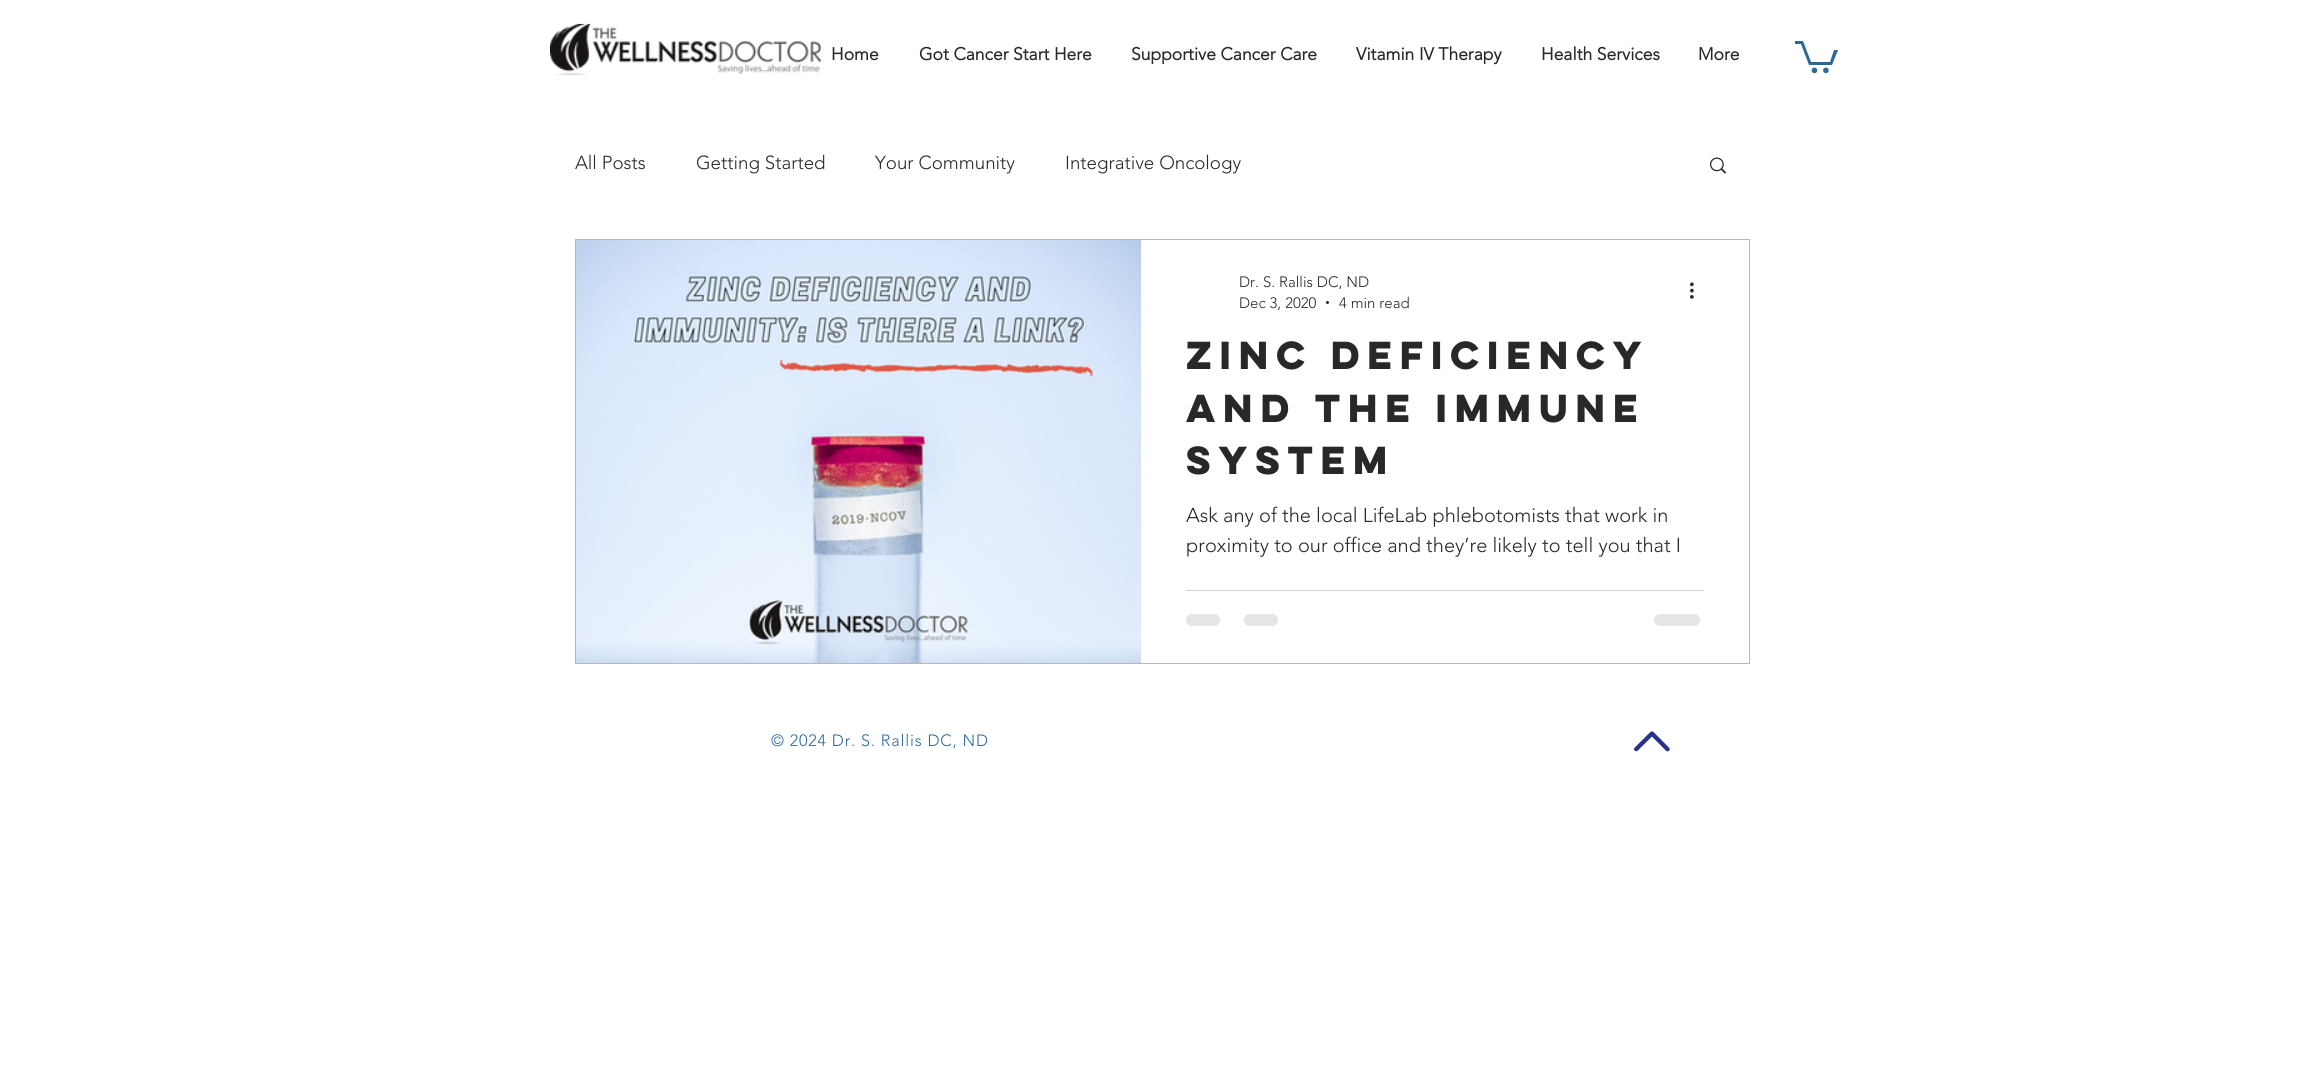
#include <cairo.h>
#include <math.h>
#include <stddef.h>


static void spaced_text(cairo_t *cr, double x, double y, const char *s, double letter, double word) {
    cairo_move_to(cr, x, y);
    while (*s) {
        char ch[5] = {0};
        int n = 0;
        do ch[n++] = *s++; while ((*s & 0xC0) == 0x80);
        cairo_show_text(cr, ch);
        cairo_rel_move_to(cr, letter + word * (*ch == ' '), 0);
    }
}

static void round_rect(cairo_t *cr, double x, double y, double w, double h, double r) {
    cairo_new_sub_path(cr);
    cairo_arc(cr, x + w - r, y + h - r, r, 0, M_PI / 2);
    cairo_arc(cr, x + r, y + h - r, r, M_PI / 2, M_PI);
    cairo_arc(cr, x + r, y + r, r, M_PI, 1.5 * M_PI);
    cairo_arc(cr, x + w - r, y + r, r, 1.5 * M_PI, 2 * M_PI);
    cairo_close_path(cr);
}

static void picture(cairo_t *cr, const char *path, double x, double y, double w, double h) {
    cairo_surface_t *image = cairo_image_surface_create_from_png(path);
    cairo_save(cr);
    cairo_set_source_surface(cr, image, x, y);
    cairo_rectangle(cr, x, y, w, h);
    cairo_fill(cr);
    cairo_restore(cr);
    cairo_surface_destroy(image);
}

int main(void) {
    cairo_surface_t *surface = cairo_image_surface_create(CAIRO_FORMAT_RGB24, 2324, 1076);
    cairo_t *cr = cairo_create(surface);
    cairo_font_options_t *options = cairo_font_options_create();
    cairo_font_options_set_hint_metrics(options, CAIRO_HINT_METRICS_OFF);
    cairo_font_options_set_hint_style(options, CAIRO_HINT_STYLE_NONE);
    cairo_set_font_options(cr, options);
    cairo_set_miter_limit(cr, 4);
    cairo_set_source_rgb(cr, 1, 1, 1);
    cairo_paint(cr);
    picture(cr, "img1.png", 550, 23, 272, 52);
    cairo_select_font_face(cr, "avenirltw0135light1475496", CAIRO_FONT_SLANT_NORMAL, CAIRO_FONT_WEIGHT_BOLD);
    cairo_set_font_size(cr, 17.5);
    cairo_set_source_rgb(cr, 0.157, 0.157, 0.157);
    cairo_move_to(cr, 831, 60);
    cairo_show_text(cr, "Home");
    cairo_move_to(cr, 919, 60);
    cairo_show_text(cr, "Got Cancer Start Here");
    cairo_move_to(cr, 1131, 60);
    cairo_show_text(cr, "Supportive Cancer Care");
    cairo_move_to(cr, 1356, 60);
    cairo_show_text(cr, "Vitamin IV Therapy");
    cairo_move_to(cr, 1541, 60);
    cairo_show_text(cr, "Health Services");
    cairo_move_to(cr, 1698, 60);
    cairo_show_text(cr, "More");
    cairo_set_source_rgb(cr, 0.169, 0.408, 0.612);
    cairo_new_path(cr);
    cairo_move_to(cr, 1838, 50);
    cairo_line_to(cr, 1832, 65);
    cairo_line_to(cr, 1809, 65);
    cairo_line_to(cr, 1801, 44);
    cairo_line_to(cr, 1795, 44);
    cairo_line_to(cr, 1795, 41);
    cairo_line_to(cr, 1803, 41);
    cairo_line_to(cr, 1811, 62);
    cairo_line_to(cr, 1830, 62);
    cairo_line_to(cr, 1834, 50);
    cairo_fill(cr);
    cairo_arc(cr, 1825.9, 70.4, 2.8, 0, 2 * M_PI);
    cairo_fill(cr);
    cairo_arc(cr, 1814.5, 70.4, 2.8, 0, 2 * M_PI);
    cairo_fill(cr);
    cairo_select_font_face(cr, "avenirltw0135light1475496 Light", CAIRO_FONT_SLANT_NORMAL, CAIRO_FONT_WEIGHT_NORMAL);
    cairo_set_font_size(cr, 18.75);
    cairo_set_source_rgb(cr, 0.157, 0.157, 0.157);
    cairo_move_to(cr, 575, 169);
    cairo_show_text(cr, "All Posts");
    cairo_move_to(cr, 696, 169);
    cairo_show_text(cr, "Getting Started");
    cairo_move_to(cr, 875, 169);
    cairo_show_text(cr, "Your Community");
    cairo_move_to(cr, 1065, 169);
    cairo_show_text(cr, "Integrative Oncology");
    picture(cr, "img2.png", 1710, 157, 17, 17);
    cairo_rectangle(cr, 575.5, 239.5, 1174, 424);
    cairo_set_source_rgb(cr, 0.722, 0.722, 0.718);
    cairo_set_line_width(cr, 1);
    cairo_stroke(cr);
    picture(cr, "img3.png", 576, 240, 565, 423);
    cairo_set_font_size(cr, 15);
    cairo_set_source_rgb(cr, 0.157, 0.157, 0.157);
    cairo_move_to(cr, 1239, 287);
    cairo_show_text(cr, "Dr. S. Rallis DC, ND");
    cairo_move_to(cr, 1239, 308);
    cairo_show_text(cr, "Dec 3, 2020");
    cairo_new_path(cr);
    cairo_arc(cr, 1327.5, 302.5, 1.5, 0, 2 * M_PI);
    cairo_fill(cr);
    cairo_move_to(cr, 1339, 308);
    cairo_show_text(cr, "4 min read");
    picture(cr, "img4.png", 1690, 282, 4, 17);
    cairo_select_font_face(cr, "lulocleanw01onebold", CAIRO_FONT_SLANT_NORMAL, CAIRO_FONT_WEIGHT_BOLD);
    cairo_set_font_size(cr, 35);
    cairo_move_to(cr, 1186, 369);
    cairo_show_text(cr, "Zinc deficiency");
    cairo_move_to(cr, 1186, 422);
    cairo_show_text(cr, "and the immune");
    cairo_move_to(cr, 1186, 474);
    cairo_show_text(cr, "system");
    cairo_select_font_face(cr, "avenirltw0135light1475496 Light", CAIRO_FONT_SLANT_NORMAL, CAIRO_FONT_WEIGHT_NORMAL);
    cairo_set_font_size(cr, 20);
    cairo_move_to(cr, 1186, 522);
    cairo_show_text(cr, "Ask any of the local LifeLab phlebotomists that work in");
    cairo_move_to(cr, 1186, 552);
    cairo_show_text(cr, "proximity to our office and they’re likely to tell you that I");
    cairo_set_source_rgb(cr, 0.831, 0.831, 0.831);
    cairo_rectangle(cr, 1186, 590, 518, 1);
    cairo_fill(cr);
    cairo_set_source_rgb(cr, 0.898, 0.898, 0.898);
    round_rect(cr, 1186, 614, 34, 12, 6);
    cairo_fill(cr);
    round_rect(cr, 1244, 614, 34, 12, 6);
    cairo_fill(cr);
    round_rect(cr, 1654, 614, 46, 12, 6);
    cairo_fill(cr);
    cairo_set_font_size(cr, 16.25);
    cairo_set_source_rgb(cr, 0.169, 0.408, 0.612);
    spaced_text(cr, 771, 746, "© 2024 Dr. S. Rallis DC, ND", 0.8, 0);
    picture(cr, "img5.png", 1634, 731, 36, 21);
    cairo_surface_write_to_png(surface, "page.png");
    cairo_font_options_destroy(options);
    cairo_destroy(cr);
    cairo_surface_destroy(surface);
    return 0;
}
